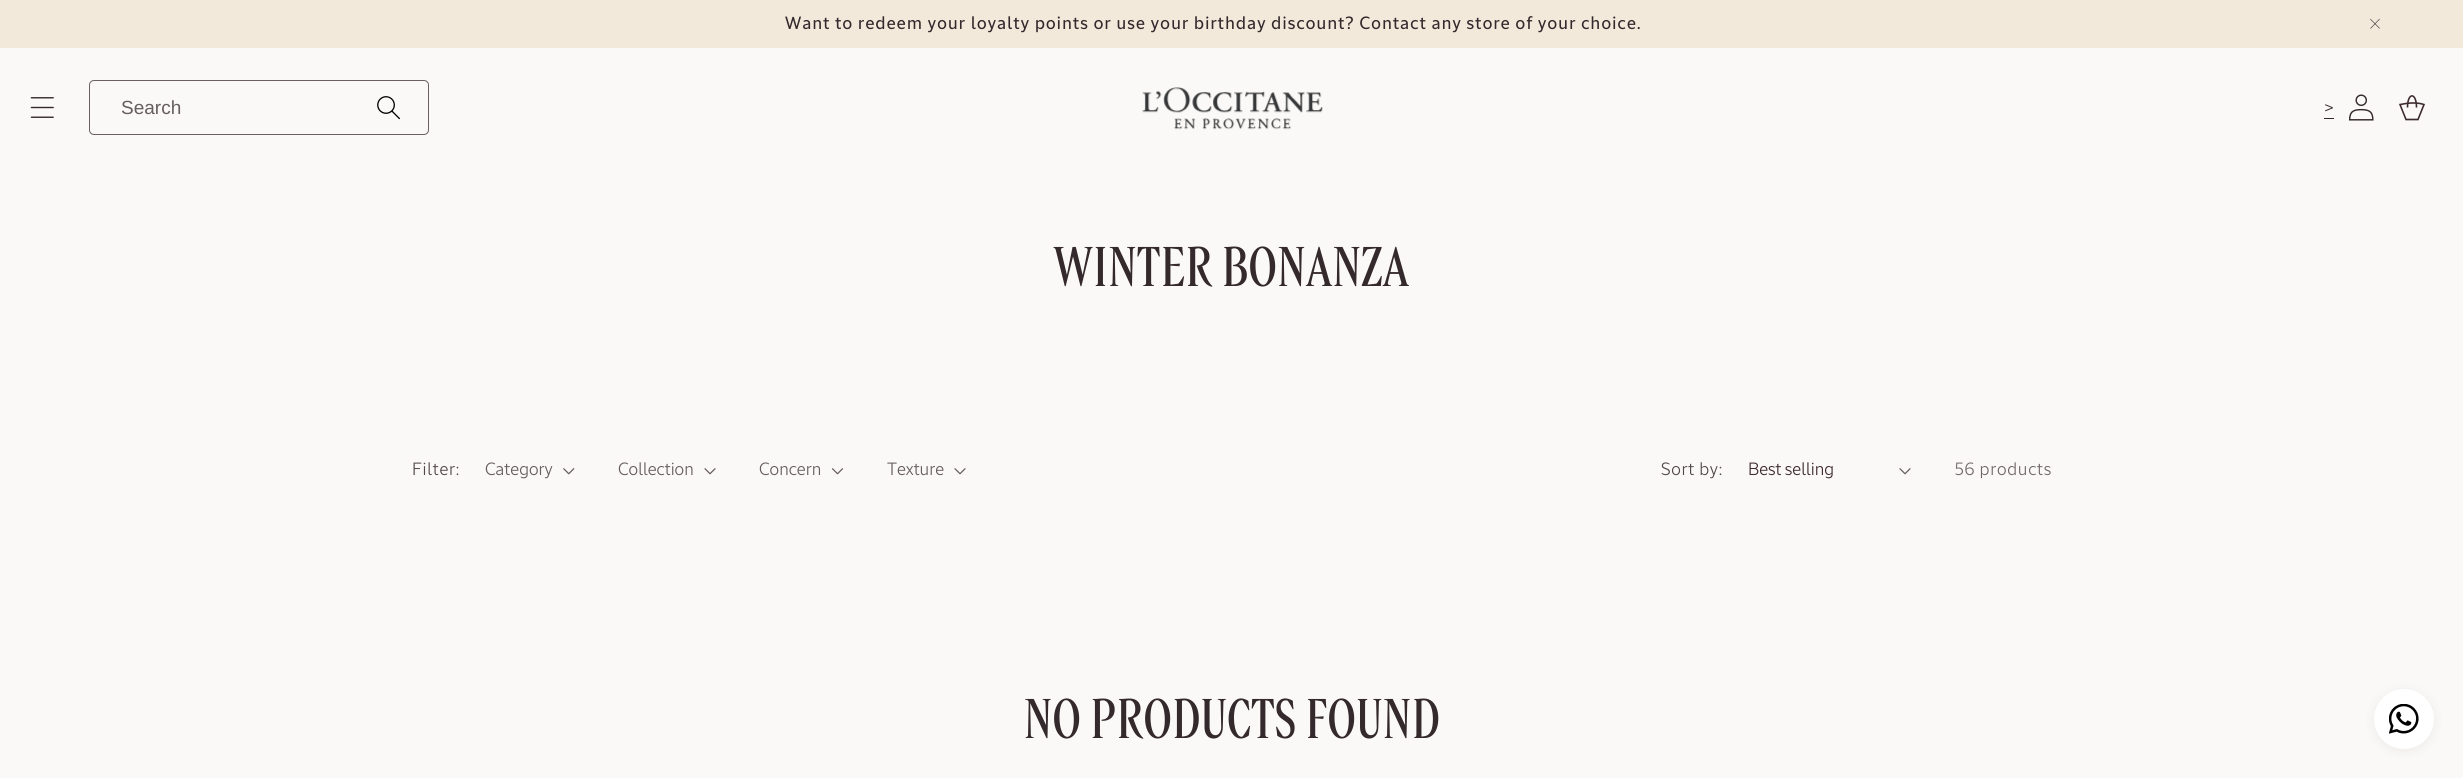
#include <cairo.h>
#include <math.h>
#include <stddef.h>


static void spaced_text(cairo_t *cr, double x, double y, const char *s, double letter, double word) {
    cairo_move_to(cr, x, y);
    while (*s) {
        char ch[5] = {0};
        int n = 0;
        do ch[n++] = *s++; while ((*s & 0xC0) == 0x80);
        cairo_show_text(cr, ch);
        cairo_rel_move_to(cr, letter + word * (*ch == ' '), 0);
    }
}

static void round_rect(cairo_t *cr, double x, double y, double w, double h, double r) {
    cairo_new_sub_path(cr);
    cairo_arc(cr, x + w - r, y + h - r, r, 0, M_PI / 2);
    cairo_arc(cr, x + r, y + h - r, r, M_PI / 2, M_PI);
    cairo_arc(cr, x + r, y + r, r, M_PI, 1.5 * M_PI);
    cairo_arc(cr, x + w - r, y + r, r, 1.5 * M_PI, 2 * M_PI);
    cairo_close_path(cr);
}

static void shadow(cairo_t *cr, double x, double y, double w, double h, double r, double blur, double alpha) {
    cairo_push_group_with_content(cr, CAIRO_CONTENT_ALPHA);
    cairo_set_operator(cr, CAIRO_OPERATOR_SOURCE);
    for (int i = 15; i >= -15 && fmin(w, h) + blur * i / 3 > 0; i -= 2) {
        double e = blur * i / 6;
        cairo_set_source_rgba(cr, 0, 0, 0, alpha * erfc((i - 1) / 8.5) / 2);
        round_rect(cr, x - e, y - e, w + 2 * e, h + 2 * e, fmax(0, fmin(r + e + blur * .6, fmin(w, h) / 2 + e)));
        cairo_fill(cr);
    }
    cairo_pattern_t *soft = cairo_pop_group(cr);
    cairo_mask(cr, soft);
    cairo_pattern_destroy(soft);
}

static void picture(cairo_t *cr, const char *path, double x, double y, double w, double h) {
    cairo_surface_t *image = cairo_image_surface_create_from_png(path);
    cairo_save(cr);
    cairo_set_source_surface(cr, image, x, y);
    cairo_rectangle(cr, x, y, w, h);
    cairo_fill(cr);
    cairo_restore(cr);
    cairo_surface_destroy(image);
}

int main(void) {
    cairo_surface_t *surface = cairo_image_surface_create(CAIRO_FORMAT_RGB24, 2463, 778);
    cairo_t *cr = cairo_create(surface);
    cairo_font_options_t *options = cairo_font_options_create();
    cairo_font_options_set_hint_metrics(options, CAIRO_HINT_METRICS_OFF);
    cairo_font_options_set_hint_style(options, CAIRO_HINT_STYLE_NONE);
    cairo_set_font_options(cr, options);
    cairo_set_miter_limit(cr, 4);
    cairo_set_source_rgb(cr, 0.984, 0.976, 0.965);
    cairo_paint(cr);
    cairo_set_source_rgb(cr, 0.949, 0.914, 0.859);
    cairo_rectangle(cr, 0, 0, 2463, 48);
    cairo_fill(cr);
    cairo_select_font_face(cr, "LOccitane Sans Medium", CAIRO_FONT_SLANT_NORMAL, CAIRO_FONT_WEIGHT_NORMAL);
    cairo_set_font_size(cr, 17.5);
    cairo_set_source_rgb(cr, 0.204, 0.161, 0.173);
    spaced_text(cr, 785, 29, "Want to redeem your loyalty points or use your birthday discount? Contact any store of your choice.", 1.25, 0);
    picture(cr, "img1.png", 2370, 18, 10, 11);
    picture(cr, "img2.png", 30, 97, 24, 21);
    round_rect(cr, 89.5, 80.5, 339, 54, 4.5);
    cairo_set_source_rgb(cr, 0.42, 0.38, 0.38);
    cairo_set_line_width(cr, 1);
    cairo_stroke(cr);
    cairo_select_font_face(cr, "Liberation Sans", CAIRO_FONT_SLANT_NORMAL, CAIRO_FONT_WEIGHT_NORMAL);
    cairo_set_font_size(cr, 19);
    cairo_set_source_rgb(cr, 0.4, 0.365, 0.373);
    cairo_move_to(cr, 121, 114);
    cairo_show_text(cr, "Search");
    picture(cr, "img3.png", 377, 96, 23, 24);
    picture(cr, "img4.png", 1142, 87, 181, 43);
    cairo_select_font_face(cr, "LOccitane Sans", CAIRO_FONT_SLANT_NORMAL, CAIRO_FONT_WEIGHT_NORMAL);
    cairo_set_font_size(cr, 17.5);
    cairo_set_source_rgb(cr, 0.204, 0.161, 0.173);
    cairo_move_to(cr, 2324, 114);
    cairo_show_text(cr, ">");
    cairo_rectangle(cr, 2324, 118, 10, 1);
    cairo_fill(cr);
    picture(cr, "img5.png", 2348, 94, 26, 27);
    cairo_new_path(cr);
    cairo_move_to(cr, 2418, 119.5);
    cairo_line_to(cr, 2406, 119.5);
    cairo_line_to(cr, 2400, 104.5);
    cairo_curve_to(cr, 2407.5, 103, 2416.5, 102, 2424, 104.5);
    cairo_close_path(cr);
    cairo_move_to(cr, 2416.5, 107.5);
    cairo_curve_to(cr, 2416.5, 92, 2407.5, 92, 2407.5, 107.5);
    cairo_set_source_rgb(cr, 0.243, 0.169, 0.18);
    cairo_set_line_width(cr, 1.6);
    cairo_stroke(cr);
    cairo_select_font_face(cr, "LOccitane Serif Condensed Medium", CAIRO_FONT_SLANT_NORMAL, CAIRO_FONT_WEIGHT_NORMAL);
    cairo_set_font_size(cr, 55);
    cairo_set_source_rgb(cr, 0.204, 0.161, 0.173);
    spaced_text(cr, 1054, 286, "WINTER BONANZA", 1.25, 0);
    cairo_select_font_face(cr, "LOccitane Sans", CAIRO_FONT_SLANT_NORMAL, CAIRO_FONT_WEIGHT_NORMAL);
    cairo_set_font_size(cr, 17.5);
    cairo_set_source_rgb(cr, 0.322, 0.282, 0.29);
    spaced_text(cr, 412, 475, "Filter:", 0.75, 0);
    cairo_set_source_rgb(cr, 0.4, 0.365, 0.373);
    cairo_move_to(cr, 485, 475);
    cairo_show_text(cr, "Category");
    picture(cr, "img6.png", 563, 468, 12, 7);
    cairo_move_to(cr, 618, 475);
    cairo_show_text(cr, "Collection");
    picture(cr, "img7.png", 704, 468, 12, 7);
    cairo_move_to(cr, 759, 475);
    cairo_show_text(cr, "Concern");
    picture(cr, "img8.png", 831, 468, 13, 7);
    cairo_move_to(cr, 887, 475);
    cairo_show_text(cr, "Texture");
    picture(cr, "img7.png", 954, 468, 12, 7);
    cairo_set_source_rgb(cr, 0.322, 0.282, 0.29);
    spaced_text(cr, 1661, 475, "Sort by:", 0.75, 0);
    cairo_set_source_rgb(cr, 0.247, 0.169, 0.18);
    cairo_move_to(cr, 1748, 475);
    cairo_show_text(cr, "Best selling");
    picture(cr, "img7.png", 1899, 468, 12, 7);
    cairo_set_source_rgb(cr, 0.439, 0.404, 0.412);
    spaced_text(cr, 1955, 475, "56 products", 0.75, 0);
    cairo_select_font_face(cr, "LOccitane Serif Condensed Medium", CAIRO_FONT_SLANT_NORMAL, CAIRO_FONT_WEIGHT_NORMAL);
    cairo_set_font_size(cr, 55);
    cairo_set_source_rgb(cr, 0.204, 0.161, 0.173);
    spaced_text(cr, 1024, 738, "NO PRODUCTS FOUND", 1.25, 0);
    cairo_set_source_rgb(cr, 0, 0, 0);
    shadow(cr, 2374, 691, 60, 60, 30, 6, 0.06);
    cairo_set_source_rgb(cr, 1, 1, 1);
    cairo_arc(cr, 2404, 719, 30, 0, 2 * M_PI);
    cairo_fill(cr);
    picture(cr, "img9.png", 2389, 704, 30, 30);
    cairo_surface_write_to_png(surface, "page.png");
    cairo_font_options_destroy(options);
    cairo_destroy(cr);
    cairo_surface_destroy(surface);
    return 0;
}
